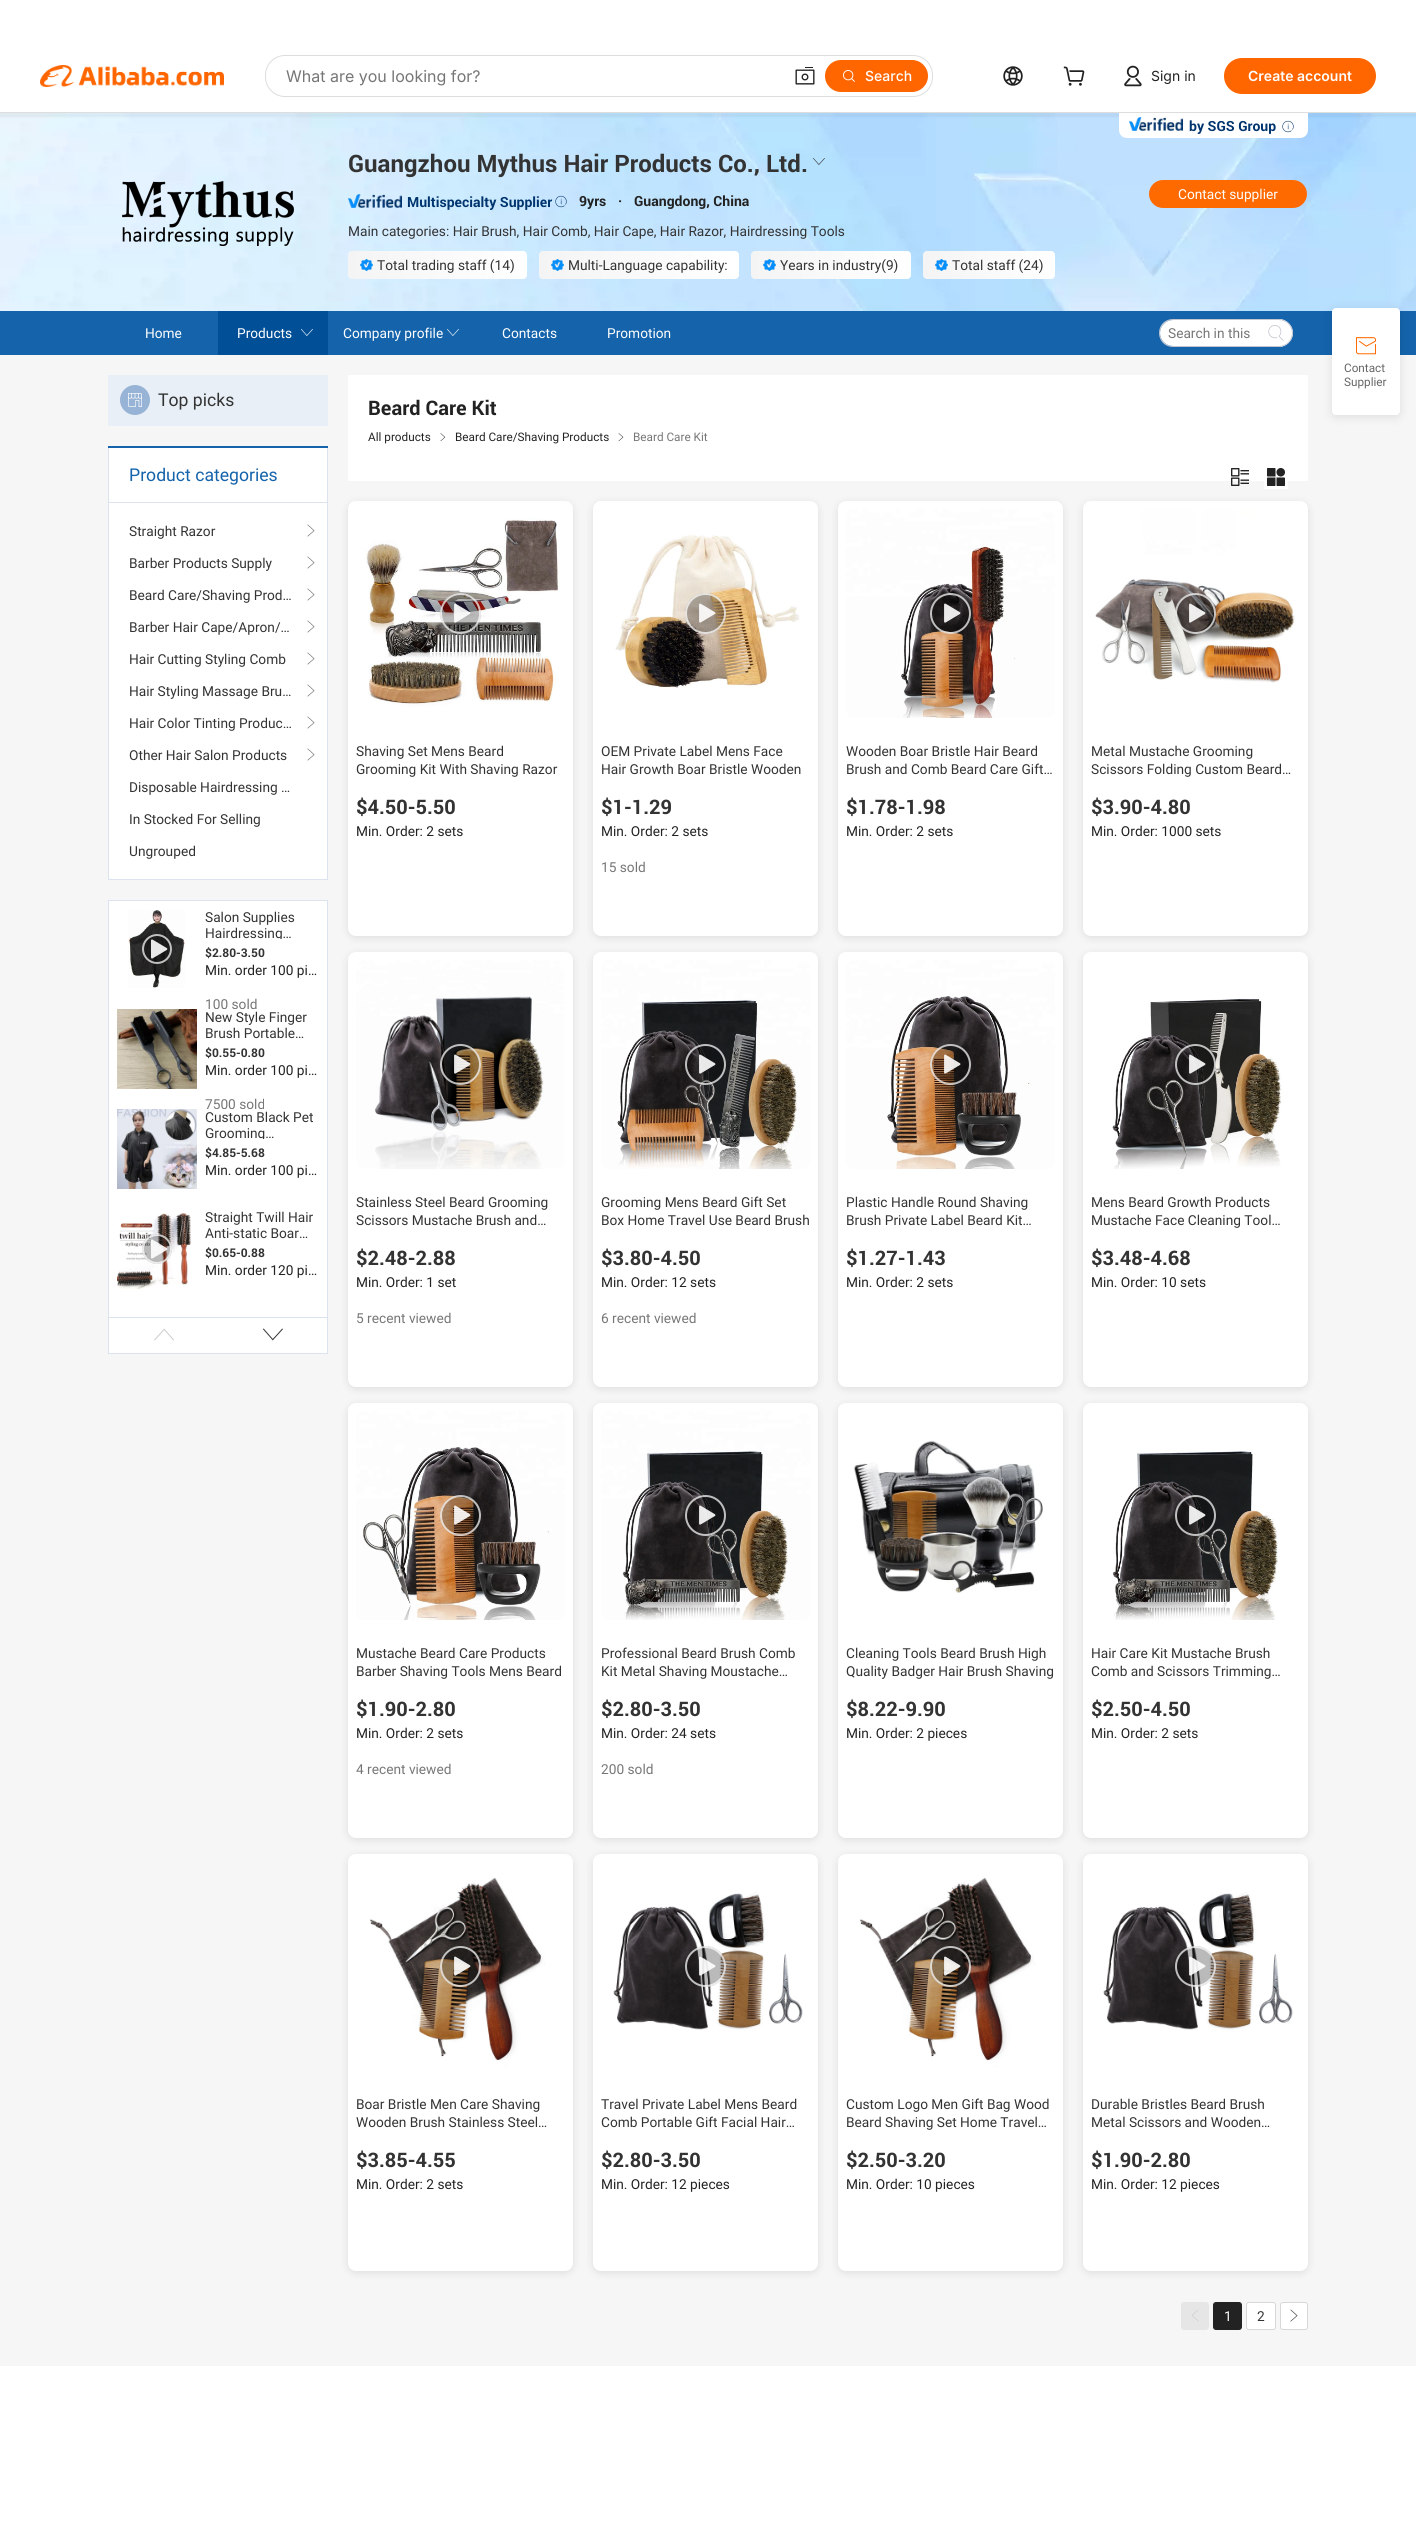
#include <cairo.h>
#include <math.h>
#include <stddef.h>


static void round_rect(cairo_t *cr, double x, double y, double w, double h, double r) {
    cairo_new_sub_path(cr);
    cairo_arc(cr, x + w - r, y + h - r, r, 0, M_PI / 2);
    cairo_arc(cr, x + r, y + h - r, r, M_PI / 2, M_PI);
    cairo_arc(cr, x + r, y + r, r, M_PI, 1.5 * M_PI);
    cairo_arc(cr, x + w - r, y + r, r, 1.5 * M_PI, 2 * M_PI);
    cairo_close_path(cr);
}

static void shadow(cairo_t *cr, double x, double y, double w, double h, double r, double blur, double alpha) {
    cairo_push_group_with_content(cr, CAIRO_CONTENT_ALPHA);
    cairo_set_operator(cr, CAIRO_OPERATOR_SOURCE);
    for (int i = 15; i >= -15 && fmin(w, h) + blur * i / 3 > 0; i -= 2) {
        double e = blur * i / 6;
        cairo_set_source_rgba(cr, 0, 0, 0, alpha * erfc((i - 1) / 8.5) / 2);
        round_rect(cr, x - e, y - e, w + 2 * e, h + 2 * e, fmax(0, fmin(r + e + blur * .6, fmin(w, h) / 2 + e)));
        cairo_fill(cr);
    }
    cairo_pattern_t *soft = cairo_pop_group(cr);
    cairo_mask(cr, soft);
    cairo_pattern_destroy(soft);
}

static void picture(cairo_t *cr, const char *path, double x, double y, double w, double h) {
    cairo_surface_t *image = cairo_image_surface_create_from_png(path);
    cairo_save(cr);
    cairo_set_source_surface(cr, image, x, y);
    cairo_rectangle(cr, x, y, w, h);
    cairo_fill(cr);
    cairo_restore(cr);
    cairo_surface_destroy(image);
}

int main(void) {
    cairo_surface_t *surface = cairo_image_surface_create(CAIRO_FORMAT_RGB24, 1416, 2534);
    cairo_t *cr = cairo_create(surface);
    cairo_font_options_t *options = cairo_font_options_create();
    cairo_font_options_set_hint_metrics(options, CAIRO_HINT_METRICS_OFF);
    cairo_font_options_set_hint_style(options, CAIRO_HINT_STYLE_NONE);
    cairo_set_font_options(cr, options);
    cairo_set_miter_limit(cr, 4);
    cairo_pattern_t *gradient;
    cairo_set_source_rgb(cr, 1, 1, 1);
    cairo_paint(cr);
    picture(cr, "img7.png", 0, 113, 1416, 198);
    cairo_set_source_rgb(cr, 0, 0, 0);
    shadow(cr, -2, 113, 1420, 4, 0, 1, 0.05);
    cairo_set_source_rgb(cr, 0.867, 0.867, 0.867);
    cairo_rectangle(cr, 0, 112, 1416, 1);
    cairo_fill(cr);
    picture(cr, "img1.png", 40, 65, 184, 22);
    round_rect(cr, 265, 55, 668, 42, 20);
    cairo_fill(cr);
    cairo_set_source_rgb(cr, 1, 1, 1);
    round_rect(cr, 266, 56, 666, 40, 19);
    cairo_fill(cr);
    cairo_select_font_face(cr, "Inter", CAIRO_FONT_SLANT_NORMAL, CAIRO_FONT_WEIGHT_NORMAL);
    cairo_set_font_size(cr, 16);
    cairo_set_source_rgb(cr, 0.463, 0.463, 0.463);
    cairo_move_to(cr, 286, 82);
    cairo_show_text(cr, "What are you looking for?");
    picture(cr, "img2.png", 795, 67, 20, 18);
    cairo_set_source_rgb(cr, 1, 0.4, 0);
    round_rect(cr, 825, 60, 103, 32, 16);
    cairo_fill(cr);
    picture(cr, "img3.png", 843, 70, 12, 12);
    cairo_select_font_face(cr, "Inter Medium", CAIRO_FONT_SLANT_NORMAL, CAIRO_FONT_WEIGHT_NORMAL);
    cairo_set_font_size(cr, 14);
    cairo_set_source_rgb(cr, 1, 1, 1);
    cairo_move_to(cr, 865, 81);
    cairo_show_text(cr, "Search");
    picture(cr, "img4.png", 1003, 66, 20, 20);
    picture(cr, "img5.png", 1063, 66, 22, 20);
    picture(cr, "img6.png", 1124, 65, 18, 22);
    cairo_select_font_face(cr, "Inter", CAIRO_FONT_SLANT_NORMAL, CAIRO_FONT_WEIGHT_NORMAL);
    cairo_set_source_rgb(cr, 0.133, 0.133, 0.133);
    cairo_move_to(cr, 1151, 81);
    cairo_show_text(cr, "Sign in");
    cairo_set_source_rgb(cr, 1, 0.4, 0);
    round_rect(cr, 1224, 58, 152, 36, 18);
    cairo_fill(cr);
    cairo_select_font_face(cr, "Inter SemiBold", CAIRO_FONT_SLANT_NORMAL, CAIRO_FONT_WEIGHT_NORMAL);
    cairo_set_source_rgb(cr, 1, 1, 1);
    cairo_move_to(cr, 1248, 81);
    cairo_show_text(cr, "Create account");
    cairo_new_path(cr);
    cairo_move_to(cr, 1119, 113);
    cairo_line_to(cr, 1308, 113);
    cairo_line_to(cr, 1308, 130);
    cairo_curve_to(cr, 1308, 134.5, 1304.5, 138, 1300, 138);
    cairo_line_to(cr, 1127, 138);
    cairo_curve_to(cr, 1122.5, 138, 1119, 134.5, 1119, 130);
    cairo_close_path(cr);
    cairo_fill(cr);
    picture(cr, "img8.png", 1129, 117, 54, 14);
    cairo_select_font_face(cr, "Roboto", CAIRO_FONT_SLANT_NORMAL, CAIRO_FONT_WEIGHT_BOLD);
    cairo_set_source_rgb(cr, 0, 0.204, 0.431);
    cairo_move_to(cr, 1189, 131);
    cairo_show_text(cr, "by SGS Group");
    picture(cr, "img9.png", 1282, 120, 12, 13);
    picture(cr, "img10.png", 122, 181, 172, 65);
    cairo_set_font_size(cr, 24);
    cairo_set_source_rgb(cr, 0.2, 0.2, 0.2);
    cairo_move_to(cr, 348, 172);
    cairo_show_text(cr, "Guangzhou Mythus Hair Products Co., Ltd.");
    picture(cr, "img11.png", 813, 158, 12, 7);
    picture(cr, "img12.png", 348, 194, 54, 14);
    cairo_set_font_size(cr, 14);
    cairo_set_source_rgb(cr, 0, 0.204, 0.431);
    cairo_move_to(cr, 407, 207);
    cairo_show_text(cr, "Multispecialty Supplier");
    picture(cr, "img13.png", 555, 195, 12, 13);
    cairo_set_source_rgb(cr, 0.133, 0.133, 0.133);
    cairo_move_to(cr, 579, 206);
    cairo_show_text(cr, "9yrs");
    cairo_move_to(cr, 618, 206);
    cairo_show_text(cr, "·");
    cairo_move_to(cr, 634, 206);
    cairo_show_text(cr, "Guangdong, China");
    cairo_select_font_face(cr, "Roboto", CAIRO_FONT_SLANT_NORMAL, CAIRO_FONT_WEIGHT_NORMAL);
    cairo_set_source_rgb(cr, 0.2, 0.2, 0.2);
    cairo_move_to(cr, 348, 236);
    cairo_show_text(cr, "Main categories: Hair Brush, Hair Comb, Hair Cape, Hair Razor, Hairdressing Tools");
    gradient = cairo_pattern_create_linear(527, 265, 348, 265);
    cairo_pattern_add_color_stop_rgba(gradient, 0, 1, 1, 1, 1);
    cairo_pattern_add_color_stop_rgba(gradient, 1, 0.957, 0.957, 0.957, 1);
    cairo_set_source(cr, gradient);
    cairo_pattern_destroy(gradient);
    round_rect(cr, 348, 251, 179, 28, 4);
    cairo_fill(cr);
    picture(cr, "img14.png", 360, 259, 13, 12);
    cairo_set_source_rgb(cr, 0.2, 0.2, 0.2);
    cairo_move_to(cr, 377, 270);
    cairo_show_text(cr, "Total trading staff (14)");
    gradient = cairo_pattern_create_linear(739, 265, 539, 265);
    cairo_pattern_add_color_stop_rgba(gradient, 0, 1, 1, 1, 1);
    cairo_pattern_add_color_stop_rgba(gradient, 1, 0.957, 0.957, 0.957, 1);
    cairo_set_source(cr, gradient);
    cairo_pattern_destroy(gradient);
    round_rect(cr, 539, 251, 200, 28, 4);
    cairo_fill(cr);
    picture(cr, "img15.png", 551, 259, 13, 12);
    cairo_set_source_rgb(cr, 0.2, 0.2, 0.2);
    cairo_move_to(cr, 568, 270);
    cairo_show_text(cr, "Multi-Language capability:");
    gradient = cairo_pattern_create_linear(911, 265, 751, 265);
    cairo_pattern_add_color_stop_rgba(gradient, 0, 1, 1, 1, 1);
    cairo_pattern_add_color_stop_rgba(gradient, 1, 0.957, 0.957, 0.957, 1);
    cairo_set_source(cr, gradient);
    cairo_pattern_destroy(gradient);
    round_rect(cr, 751, 251, 160, 28, 4);
    cairo_fill(cr);
    picture(cr, "img16.png", 763, 259, 13, 12);
    cairo_set_source_rgb(cr, 0.2, 0.2, 0.2);
    cairo_move_to(cr, 780, 270);
    cairo_show_text(cr, "Years in industry(9)");
    gradient = cairo_pattern_create_linear(1055, 265, 923, 265);
    cairo_pattern_add_color_stop_rgba(gradient, 0, 1, 1, 1, 1);
    cairo_pattern_add_color_stop_rgba(gradient, 1, 0.957, 0.957, 0.957, 1);
    cairo_set_source(cr, gradient);
    cairo_pattern_destroy(gradient);
    round_rect(cr, 923, 251, 132, 28, 4);
    cairo_fill(cr);
    picture(cr, "img17.png", 935, 259, 13, 12);
    cairo_set_source_rgb(cr, 0.2, 0.2, 0.2);
    cairo_move_to(cr, 952, 270);
    cairo_show_text(cr, "Total staff (24)");
    cairo_set_source_rgb(cr, 1, 0.416, 0);
    round_rect(cr, 1149, 180, 158, 28, 14);
    cairo_fill(cr);
    cairo_set_source_rgb(cr, 1, 1, 1);
    cairo_move_to(cr, 1178, 199);
    cairo_show_text(cr, "Contact supplier");
    cairo_set_source_rgb(cr, 0.082, 0.388, 0.671);
    cairo_rectangle(cr, 0, 311, 1416, 44);
    cairo_fill(cr);
    cairo_set_source_rgb(cr, 1, 1, 1);
    cairo_move_to(cr, 145, 338);
    cairo_show_text(cr, "Home");
    cairo_set_source_rgb(cr, 0.004, 0.31, 0.592);
    cairo_rectangle(cr, 218, 311, 110, 44);
    cairo_fill(cr);
    cairo_set_source_rgb(cr, 1, 1, 1);
    cairo_move_to(cr, 237, 338);
    cairo_show_text(cr, "Products");
    picture(cr, "img18.png", 301, 329, 12, 7);
    cairo_move_to(cr, 343, 338);
    cairo_show_text(cr, "Company profile");
    picture(cr, "img19.png", 447, 329, 12, 7);
    cairo_move_to(cr, 502, 338);
    cairo_show_text(cr, "Contacts");
    cairo_move_to(cr, 607, 338);
    cairo_show_text(cr, "Promotion");
    cairo_set_source_rgb(cr, 0.769, 0.776, 0.812);
    cairo_set_fill_rule(cr, CAIRO_FILL_RULE_EVEN_ODD);
    cairo_new_path(cr);
    cairo_move_to(cr, 1173, 319);
    cairo_line_to(cr, 1260, 319);
    cairo_line_to(cr, 1260, 347);
    cairo_line_to(cr, 1173, 347);
    cairo_curve_to(cr, 1165, 347, 1159, 341, 1159, 333);
    cairo_curve_to(cr, 1159, 325, 1165, 319, 1173, 319);
    cairo_close_path(cr);
    cairo_move_to(cr, 1173, 320);
    cairo_line_to(cr, 1260, 320);
    cairo_line_to(cr, 1260, 346);
    cairo_line_to(cr, 1173, 346);
    cairo_curve_to(cr, 1166, 346, 1160, 340, 1160, 333);
    cairo_curve_to(cr, 1160, 326, 1166, 320, 1173, 320);
    cairo_close_path(cr);
    cairo_fill(cr);
    cairo_set_source_rgb(cr, 1, 1, 1);
    cairo_new_path(cr);
    cairo_move_to(cr, 1173, 320);
    cairo_line_to(cr, 1259.5, 320);
    cairo_curve_to(cr, 1260, 320, 1260, 320, 1260, 320.5);
    cairo_line_to(cr, 1260, 345.5);
    cairo_curve_to(cr, 1260, 346, 1260, 346, 1259.5, 346);
    cairo_line_to(cr, 1173, 346);
    cairo_curve_to(cr, 1166, 346, 1160, 340, 1160, 333);
    cairo_curve_to(cr, 1160, 326, 1166, 320, 1173, 320);
    cairo_close_path(cr);
    cairo_fill(cr);
    cairo_set_source_rgb(cr, 0.463, 0.463, 0.463);
    cairo_move_to(cr, 1168, 338);
    cairo_show_text(cr, "Search in this");
    cairo_set_source_rgb(cr, 1, 1, 1);
    cairo_new_path(cr);
    cairo_move_to(cr, 1260, 319);
    cairo_line_to(cr, 1279, 319);
    cairo_curve_to(cr, 1286.5, 319, 1293, 325.5, 1293, 333);
    cairo_curve_to(cr, 1293, 340.5, 1286.5, 347, 1279, 347);
    cairo_line_to(cr, 1260, 347);
    cairo_close_path(cr);
    cairo_fill(cr);
    cairo_set_source_rgb(cr, 0.769, 0.776, 0.812);
    cairo_new_path(cr);
    cairo_move_to(cr, 1260, 319);
    cairo_line_to(cr, 1279, 319);
    cairo_curve_to(cr, 1286.5, 319, 1293, 325.5, 1293, 333);
    cairo_curve_to(cr, 1293, 340.5, 1286.5, 347, 1279, 347);
    cairo_line_to(cr, 1260, 347);
    cairo_close_path(cr);
    cairo_move_to(cr, 1260, 320);
    cairo_line_to(cr, 1279, 320);
    cairo_curve_to(cr, 1286, 320, 1292, 326, 1292, 333);
    cairo_curve_to(cr, 1292, 340, 1286, 346, 1279, 346);
    cairo_line_to(cr, 1260, 346);
    cairo_close_path(cr);
    cairo_fill(cr);
    picture(cr, "img20.png", 1268, 325, 16, 16);
    cairo_set_source_rgb(cr, 0.961, 0.961, 0.961);
    cairo_rectangle(cr, 0, 355, 1416, 2011);
    cairo_fill(cr);
    cairo_set_source_rgb(cr, 0.914, 0.937, 0.961);
    cairo_rectangle(cr, 108, 375, 220, 51);
    cairo_fill(cr);
    cairo_set_source_rgb(cr, 0.592, 0.702, 0.835);
    cairo_arc(cr, 135, 400, 15, 0, 2 * M_PI);
    cairo_fill(cr);
    picture(cr, "img21.png", 128, 393, 14, 14);
    cairo_set_font_size(cr, 18);
    cairo_set_source_rgb(cr, 0.2, 0.2, 0.2);
    cairo_move_to(cr, 158, 406);
    cairo_show_text(cr, "Top picks");
    cairo_set_source_rgb(cr, 1, 1, 1);
    cairo_rectangle(cr, 109, 448, 218, 431);
    cairo_fill(cr);
    cairo_set_source_rgb(cr, 0.082, 0.388, 0.671);
    cairo_rectangle(cr, 108, 446, 220, 2);
    cairo_fill(cr);
    cairo_set_source_rgb(cr, 0.859, 0.89, 0.937);
    cairo_rectangle(cr, 327, 448, 1, 432);
    cairo_fill(cr);
    cairo_rectangle(cr, 108, 879, 220, 1);
    cairo_fill(cr);
    cairo_rectangle(cr, 108, 448, 1, 432);
    cairo_fill(cr);
    cairo_rectangle(cr, 109, 502, 218, 1);
    cairo_fill(cr);
    cairo_set_source_rgb(cr, 0.082, 0.388, 0.671);
    cairo_move_to(cr, 129, 481);
    cairo_show_text(cr, "Product categories");
    cairo_set_font_size(cr, 14);
    cairo_set_source_rgb(cr, 0.2, 0.2, 0.2);
    cairo_move_to(cr, 129, 536);
    cairo_show_text(cr, "Straight Razor");
    picture(cr, "img22.png", 307, 524, 8, 13);
    cairo_move_to(cr, 129, 568);
    cairo_show_text(cr, "Barber Products Supply");
    picture(cr, "img22.png", 307, 556, 8, 13);
    cairo_move_to(cr, 129, 600);
    cairo_show_text(cr, "Beard Care/Shaving Prod…");
    picture(cr, "img22.png", 307, 588, 8, 13);
    cairo_move_to(cr, 129, 632);
    cairo_show_text(cr, "Barber Hair Cape/Apron/…");
    picture(cr, "img22.png", 307, 620, 8, 13);
    cairo_move_to(cr, 129, 664);
    cairo_show_text(cr, "Hair Cutting Styling Comb");
    picture(cr, "img22.png", 307, 652, 8, 13);
    cairo_move_to(cr, 129, 696);
    cairo_show_text(cr, "Hair Styling Massage Bru…");
    picture(cr, "img22.png", 307, 684, 8, 13);
    cairo_move_to(cr, 129, 728);
    cairo_show_text(cr, "Hair Color Tinting Produc…");
    picture(cr, "img22.png", 307, 716, 8, 13);
    cairo_move_to(cr, 129, 760);
    cairo_show_text(cr, "Other Hair Salon Products");
    picture(cr, "img22.png", 307, 748, 8, 13);
    cairo_move_to(cr, 129, 792);
    cairo_show_text(cr, "Disposable Hairdressing …");
    cairo_move_to(cr, 129, 824);
    cairo_show_text(cr, "In Stocked For Selling");
    cairo_move_to(cr, 129, 856);
    cairo_show_text(cr, "Ungrouped");
    cairo_set_source_rgb(cr, 1, 1, 1);
    cairo_rectangle(cr, 108.5, 900.5, 219, 453);
    cairo_fill_preserve(cr);
    cairo_set_source_rgb(cr, 0.859, 0.89, 0.937);
    cairo_set_line_width(cr, 1);
    cairo_stroke(cr);
    picture(cr, "img23.png", 128, 910, 57, 78);
    cairo_set_source_rgba(cr, 0, 0, 0, 0.27);
    cairo_arc(cr, 157, 949, 15, 0, 2 * M_PI);
    cairo_fill(cr);
    cairo_arc(cr, 157, 949, 14, 0, 2 * M_PI);
    cairo_set_source_rgba(cr, 1, 1, 1, 0.72);
    cairo_set_line_width(cr, 2);
    cairo_stroke(cr);
    picture(cr, "img24.png", 150, 939, 18, 20);
    cairo_set_source_rgb(cr, 0.2, 0.2, 0.2);
    cairo_move_to(cr, 205, 922);
    cairo_show_text(cr, "Salon Supplies");
    cairo_save(cr);
    cairo_set_fill_rule(cr, CAIRO_FILL_RULE_WINDING);
    cairo_rectangle(cr, 205, 909, 114, 30);
    cairo_clip(cr);
    cairo_move_to(cr, 205, 938);
    cairo_show_text(cr, "Hairdressing…");
    cairo_restore(cr);
    cairo_select_font_face(cr, "Roboto", CAIRO_FONT_SLANT_NORMAL, CAIRO_FONT_WEIGHT_BOLD);
    cairo_set_font_size(cr, 12);
    cairo_move_to(cr, 205, 957);
    cairo_show_text(cr, "$2.80-3.50");
    cairo_select_font_face(cr, "Roboto", CAIRO_FONT_SLANT_NORMAL, CAIRO_FONT_WEIGHT_NORMAL);
    cairo_set_font_size(cr, 14);
    cairo_set_source_rgb(cr, 0.133, 0.133, 0.133);
    cairo_move_to(cr, 205, 975);
    cairo_show_text(cr, "Min. order 100 pi…");
    cairo_save(cr);
    cairo_set_fill_rule(cr, CAIRO_FILL_RULE_WINDING);
    cairo_rectangle(cr, 205, 909, 114, 100);
    cairo_clip(cr);
    cairo_set_source_rgb(cr, 0.463, 0.463, 0.463);
    cairo_move_to(cr, 205, 1009);
    cairo_show_text(cr, "100 sold");
    cairo_restore(cr);
    picture(cr, "img25.png", 117, 1009, 80, 80);
    cairo_set_source_rgb(cr, 0.2, 0.2, 0.2);
    cairo_move_to(cr, 205, 1022);
    cairo_show_text(cr, "New Style Finger");
    cairo_move_to(cr, 205, 1038);
    cairo_show_text(cr, "Brush Portable…");
    cairo_select_font_face(cr, "Roboto", CAIRO_FONT_SLANT_NORMAL, CAIRO_FONT_WEIGHT_BOLD);
    cairo_set_font_size(cr, 12);
    cairo_move_to(cr, 205, 1057);
    cairo_show_text(cr, "$0.55-0.80");
    cairo_select_font_face(cr, "Roboto", CAIRO_FONT_SLANT_NORMAL, CAIRO_FONT_WEIGHT_NORMAL);
    cairo_set_font_size(cr, 14);
    cairo_set_source_rgb(cr, 0.133, 0.133, 0.133);
    cairo_move_to(cr, 205, 1075);
    cairo_show_text(cr, "Min. order 100 pi…");
    cairo_save(cr);
    cairo_set_fill_rule(cr, CAIRO_FILL_RULE_WINDING);
    cairo_rectangle(cr, 205, 1009, 114, 100);
    cairo_clip(cr);
    cairo_set_source_rgb(cr, 0.463, 0.463, 0.463);
    cairo_move_to(cr, 205, 1109);
    cairo_show_text(cr, "7500 sold");
    cairo_restore(cr);
    picture(cr, "img26.png", 117, 1109, 80, 80);
    cairo_set_source_rgb(cr, 0.2, 0.2, 0.2);
    cairo_move_to(cr, 205, 1122);
    cairo_show_text(cr, "Custom Black Pet");
    cairo_save(cr);
    cairo_set_fill_rule(cr, CAIRO_FILL_RULE_WINDING);
    cairo_rectangle(cr, 205, 1109, 114, 30);
    cairo_clip(cr);
    cairo_move_to(cr, 205, 1138);
    cairo_show_text(cr, "Grooming…");
    cairo_restore(cr);
    cairo_select_font_face(cr, "Roboto", CAIRO_FONT_SLANT_NORMAL, CAIRO_FONT_WEIGHT_BOLD);
    cairo_set_font_size(cr, 12);
    cairo_move_to(cr, 205, 1157);
    cairo_show_text(cr, "$4.85-5.68");
    cairo_select_font_face(cr, "Roboto", CAIRO_FONT_SLANT_NORMAL, CAIRO_FONT_WEIGHT_NORMAL);
    cairo_set_font_size(cr, 14);
    cairo_set_source_rgb(cr, 0.133, 0.133, 0.133);
    cairo_move_to(cr, 205, 1175);
    cairo_show_text(cr, "Min. order 100 pi…");
    picture(cr, "img27.png", 117, 1213, 75, 76);
    cairo_set_source_rgba(cr, 0, 0, 0, 0.27);
    cairo_arc(cr, 157, 1249, 15, 0, 2 * M_PI);
    cairo_fill(cr);
    cairo_arc(cr, 157, 1249, 14, 0, 2 * M_PI);
    cairo_set_source_rgba(cr, 1, 1, 1, 0.72);
    cairo_stroke(cr);
    picture(cr, "img28.png", 151, 1239, 17, 20);
    cairo_set_source_rgb(cr, 0.2, 0.2, 0.2);
    cairo_move_to(cr, 205, 1222);
    cairo_show_text(cr, "Straight Twill Hair");
    cairo_move_to(cr, 205, 1238);
    cairo_show_text(cr, "Anti-static Boar…");
    cairo_select_font_face(cr, "Roboto", CAIRO_FONT_SLANT_NORMAL, CAIRO_FONT_WEIGHT_BOLD);
    cairo_set_font_size(cr, 12);
    cairo_move_to(cr, 205, 1257);
    cairo_show_text(cr, "$0.65-0.88");
    cairo_select_font_face(cr, "Roboto", CAIRO_FONT_SLANT_NORMAL, CAIRO_FONT_WEIGHT_NORMAL);
    cairo_set_font_size(cr, 14);
    cairo_set_source_rgb(cr, 0.133, 0.133, 0.133);
    cairo_move_to(cr, 205, 1275);
    cairo_show_text(cr, "Min. order 120 pi…");
    cairo_set_source_rgb(cr, 0.859, 0.89, 0.937);
    cairo_rectangle(cr, 109, 1317, 218, 1);
    cairo_fill(cr);
    picture(cr, "img29.png", 154, 1328, 20, 13);
    picture(cr, "img30.png", 263, 1328, 20, 13);
    cairo_set_source_rgb(cr, 1, 1, 1);
    cairo_rectangle(cr, 348, 375, 960, 106);
    cairo_fill(cr);
    cairo_select_font_face(cr, "Roboto", CAIRO_FONT_SLANT_NORMAL, CAIRO_FONT_WEIGHT_BOLD);
    cairo_set_font_size(cr, 20);
    cairo_set_source_rgb(cr, 0.133, 0.133, 0.133);
    cairo_move_to(cr, 368, 415);
    cairo_show_text(cr, "Beard Care Kit");
    cairo_select_font_face(cr, "Roboto", CAIRO_FONT_SLANT_NORMAL, CAIRO_FONT_WEIGHT_NORMAL);
    cairo_set_font_size(cr, 12);
    cairo_move_to(cr, 368, 441);
    cairo_show_text(cr, "All products");
    picture(cr, "img31.png", 440, 433, 6, 9);
    cairo_move_to(cr, 455, 441);
    cairo_show_text(cr, "Beard Care/Shaving Products");
    picture(cr, "img32.png", 618, 433, 6, 9);
    cairo_set_source_rgb(cr, 0.463, 0.463, 0.463);
    cairo_move_to(cr, 633, 441);
    cairo_show_text(cr, "Beard Care Kit");
    picture(cr, "img33.png", 1231, 468, 18, 18);
    picture(cr, "img34.png", 1264, 468, 24, 21);
    cairo_set_source_rgb(cr, 0, 0, 0);
    shadow(cr, 348, 503, 225, 435, 8, 4, 0.1);
    cairo_set_source_rgb(cr, 1, 1, 1);
    round_rect(cr, 348, 501, 225, 435, 8);
    cairo_fill(cr);
    picture(cr, "img35.png", 356, 509, 209, 209);
    cairo_set_source_rgba(cr, 0, 0, 0, 0.27);
    cairo_arc(cr, 460.5, 613.5, 20.5, 0, 2 * M_PI);
    cairo_fill(cr);
    cairo_arc(cr, 460.5, 613.5, 19.5, 0, 2 * M_PI);
    cairo_set_source_rgba(cr, 1, 1, 1, 0.72);
    cairo_stroke(cr);
    picture(cr, "img36.png", 454, 603, 17, 20);
    cairo_set_font_size(cr, 14);
    cairo_set_source_rgb(cr, 0.2, 0.2, 0.2);
    cairo_move_to(cr, 356, 756);
    cairo_show_text(cr, "Shaving Set Mens Beard");
    cairo_move_to(cr, 356, 774);
    cairo_show_text(cr, "Grooming Kit With Shaving Razor");
    cairo_select_font_face(cr, "Roboto", CAIRO_FONT_SLANT_NORMAL, CAIRO_FONT_WEIGHT_BOLD);
    cairo_set_font_size(cr, 20);
    cairo_move_to(cr, 356, 814);
    cairo_show_text(cr, "$4.50-5.50");
    cairo_select_font_face(cr, "Roboto", CAIRO_FONT_SLANT_NORMAL, CAIRO_FONT_WEIGHT_NORMAL);
    cairo_set_font_size(cr, 14);
    cairo_set_source_rgb(cr, 0.133, 0.133, 0.133);
    cairo_move_to(cr, 356, 836);
    cairo_show_text(cr, "Min. Order: 2 sets");
    cairo_set_source_rgb(cr, 0, 0, 0);
    shadow(cr, 593, 503, 225, 435, 8, 4, 0.1);
    cairo_set_source_rgb(cr, 1, 1, 1);
    round_rect(cr, 593, 501, 225, 435, 8);
    cairo_fill(cr);
    picture(cr, "img37.png", 601, 509, 209, 209);
    cairo_set_source_rgba(cr, 0, 0, 0, 0.27);
    cairo_arc(cr, 705.5, 613.5, 20.5, 0, 2 * M_PI);
    cairo_fill(cr);
    cairo_arc(cr, 705.5, 613.5, 19.5, 0, 2 * M_PI);
    cairo_set_source_rgba(cr, 1, 1, 1, 0.72);
    cairo_stroke(cr);
    picture(cr, "img38.png", 699, 603, 17, 20);
    cairo_set_source_rgb(cr, 0.2, 0.2, 0.2);
    cairo_move_to(cr, 601, 756);
    cairo_show_text(cr, "OEM Private Label Mens Face");
    cairo_move_to(cr, 601, 774);
    cairo_show_text(cr, "Hair Growth Boar Bristle Wooden");
    cairo_select_font_face(cr, "Roboto", CAIRO_FONT_SLANT_NORMAL, CAIRO_FONT_WEIGHT_BOLD);
    cairo_set_font_size(cr, 20);
    cairo_move_to(cr, 601, 814);
    cairo_show_text(cr, "$1-1.29");
    cairo_select_font_face(cr, "Roboto", CAIRO_FONT_SLANT_NORMAL, CAIRO_FONT_WEIGHT_NORMAL);
    cairo_set_font_size(cr, 14);
    cairo_set_source_rgb(cr, 0.133, 0.133, 0.133);
    cairo_move_to(cr, 601, 836);
    cairo_show_text(cr, "Min. Order: 2 sets");
    cairo_set_source_rgb(cr, 0.463, 0.463, 0.463);
    cairo_move_to(cr, 601, 872);
    cairo_show_text(cr, "15 sold");
    cairo_set_source_rgb(cr, 0, 0, 0);
    shadow(cr, 838, 503, 225, 435, 8, 4, 0.1);
    cairo_set_source_rgb(cr, 1, 1, 1);
    round_rect(cr, 838, 501, 225, 435, 8);
    cairo_fill(cr);
    picture(cr, "img39.png", 846, 509, 209, 209);
    cairo_set_source_rgba(cr, 0, 0, 0, 0.27);
    cairo_arc(cr, 950.5, 613.5, 20.5, 0, 2 * M_PI);
    cairo_fill(cr);
    cairo_arc(cr, 950.5, 613.5, 19.5, 0, 2 * M_PI);
    cairo_set_source_rgba(cr, 1, 1, 1, 0.72);
    cairo_stroke(cr);
    picture(cr, "img40.png", 944, 603, 17, 20);
    cairo_set_source_rgb(cr, 0.2, 0.2, 0.2);
    cairo_move_to(cr, 846, 756);
    cairo_show_text(cr, "Wooden Boar Bristle Hair Beard");
    cairo_move_to(cr, 846, 774);
    cairo_show_text(cr, "Brush and Comb Beard Care Gift…");
    cairo_select_font_face(cr, "Roboto", CAIRO_FONT_SLANT_NORMAL, CAIRO_FONT_WEIGHT_BOLD);
    cairo_set_font_size(cr, 20);
    cairo_move_to(cr, 846, 814);
    cairo_show_text(cr, "$1.78-1.98");
    cairo_select_font_face(cr, "Roboto", CAIRO_FONT_SLANT_NORMAL, CAIRO_FONT_WEIGHT_NORMAL);
    cairo_set_font_size(cr, 14);
    cairo_set_source_rgb(cr, 0.133, 0.133, 0.133);
    cairo_move_to(cr, 846, 836);
    cairo_show_text(cr, "Min. Order: 2 sets");
    cairo_set_source_rgb(cr, 0, 0, 0);
    shadow(cr, 1083, 503, 225, 435, 8, 4, 0.1);
    cairo_set_source_rgb(cr, 1, 1, 1);
    round_rect(cr, 1083, 501, 225, 435, 8);
    cairo_fill(cr);
    picture(cr, "img41.png", 1091, 509, 209, 209);
    cairo_set_source_rgba(cr, 0, 0, 0, 0.27);
    cairo_arc(cr, 1195.5, 613.5, 20.5, 0, 2 * M_PI);
    cairo_fill(cr);
    cairo_arc(cr, 1195.5, 613.5, 19.5, 0, 2 * M_PI);
    cairo_set_source_rgba(cr, 1, 1, 1, 0.72);
    cairo_stroke(cr);
    picture(cr, "img42.png", 1189, 603, 17, 20);
    cairo_set_source_rgb(cr, 0.2, 0.2, 0.2);
    cairo_move_to(cr, 1091, 756);
    cairo_show_text(cr, "Metal Mustache Grooming");
    cairo_move_to(cr, 1091, 774);
    cairo_show_text(cr, "Scissors Folding Custom Beard…");
    cairo_select_font_face(cr, "Roboto", CAIRO_FONT_SLANT_NORMAL, CAIRO_FONT_WEIGHT_BOLD);
    cairo_set_font_size(cr, 20);
    cairo_move_to(cr, 1091, 814);
    cairo_show_text(cr, "$3.90-4.80");
    cairo_select_font_face(cr, "Roboto", CAIRO_FONT_SLANT_NORMAL, CAIRO_FONT_WEIGHT_NORMAL);
    cairo_set_font_size(cr, 14);
    cairo_set_source_rgb(cr, 0.133, 0.133, 0.133);
    cairo_move_to(cr, 1091, 836);
    cairo_show_text(cr, "Min. Order: 1000 sets");
    cairo_set_source_rgb(cr, 0, 0, 0);
    shadow(cr, 348, 954, 225, 435, 8, 4, 0.1);
    cairo_set_source_rgb(cr, 1, 1, 1);
    round_rect(cr, 348, 952, 225, 435, 8);
    cairo_fill(cr);
    picture(cr, "img43.png", 356, 960, 209, 209);
    cairo_set_source_rgba(cr, 0, 0, 0, 0.27);
    cairo_arc(cr, 460.5, 1064.5, 20.5, 0, 2 * M_PI);
    cairo_fill(cr);
    cairo_arc(cr, 460.5, 1064.5, 19.5, 0, 2 * M_PI);
    cairo_set_source_rgba(cr, 1, 1, 1, 0.72);
    cairo_stroke(cr);
    picture(cr, "img44.png", 454, 1054, 17, 20);
    cairo_set_source_rgb(cr, 0.2, 0.2, 0.2);
    cairo_move_to(cr, 356, 1207);
    cairo_show_text(cr, "Stainless Steel Beard Grooming");
    cairo_move_to(cr, 356, 1225);
    cairo_show_text(cr, "Scissors Mustache Brush and…");
    cairo_select_font_face(cr, "Roboto", CAIRO_FONT_SLANT_NORMAL, CAIRO_FONT_WEIGHT_BOLD);
    cairo_set_font_size(cr, 20);
    cairo_move_to(cr, 356, 1265);
    cairo_show_text(cr, "$2.48-2.88");
    cairo_select_font_face(cr, "Roboto", CAIRO_FONT_SLANT_NORMAL, CAIRO_FONT_WEIGHT_NORMAL);
    cairo_set_font_size(cr, 14);
    cairo_set_source_rgb(cr, 0.133, 0.133, 0.133);
    cairo_move_to(cr, 356, 1287);
    cairo_show_text(cr, "Min. Order: 1 set");
    cairo_set_source_rgb(cr, 0.463, 0.463, 0.463);
    cairo_move_to(cr, 356, 1323);
    cairo_show_text(cr, "5 recent viewed");
    cairo_set_source_rgb(cr, 0, 0, 0);
    shadow(cr, 593, 954, 225, 435, 8, 4, 0.1);
    cairo_set_source_rgb(cr, 1, 1, 1);
    round_rect(cr, 593, 952, 225, 435, 8);
    cairo_fill(cr);
    picture(cr, "img45.png", 601, 960, 209, 209);
    cairo_set_source_rgba(cr, 0, 0, 0, 0.27);
    cairo_arc(cr, 705.5, 1064.5, 20.5, 0, 2 * M_PI);
    cairo_fill(cr);
    cairo_arc(cr, 705.5, 1064.5, 19.5, 0, 2 * M_PI);
    cairo_set_source_rgba(cr, 1, 1, 1, 0.72);
    cairo_stroke(cr);
    picture(cr, "img46.png", 699, 1054, 17, 20);
    cairo_set_source_rgb(cr, 0.2, 0.2, 0.2);
    cairo_move_to(cr, 601, 1207);
    cairo_show_text(cr, "Grooming Mens Beard Gift Set");
    cairo_move_to(cr, 601, 1225);
    cairo_show_text(cr, "Box Home Travel Use Beard Brush");
    cairo_select_font_face(cr, "Roboto", CAIRO_FONT_SLANT_NORMAL, CAIRO_FONT_WEIGHT_BOLD);
    cairo_set_font_size(cr, 20);
    cairo_move_to(cr, 601, 1265);
    cairo_show_text(cr, "$3.80-4.50");
    cairo_select_font_face(cr, "Roboto", CAIRO_FONT_SLANT_NORMAL, CAIRO_FONT_WEIGHT_NORMAL);
    cairo_set_font_size(cr, 14);
    cairo_set_source_rgb(cr, 0.133, 0.133, 0.133);
    cairo_move_to(cr, 601, 1287);
    cairo_show_text(cr, "Min. Order: 12 sets");
    cairo_set_source_rgb(cr, 0.463, 0.463, 0.463);
    cairo_move_to(cr, 601, 1323);
    cairo_show_text(cr, "6 recent viewed");
    cairo_set_source_rgb(cr, 0, 0, 0);
    shadow(cr, 838, 954, 225, 435, 8, 4, 0.1);
    cairo_set_source_rgb(cr, 1, 1, 1);
    round_rect(cr, 838, 952, 225, 435, 8);
    cairo_fill(cr);
    picture(cr, "img47.png", 846, 960, 209, 209);
    cairo_set_source_rgba(cr, 0, 0, 0, 0.27);
    cairo_arc(cr, 950.5, 1064.5, 20.5, 0, 2 * M_PI);
    cairo_fill(cr);
    cairo_arc(cr, 950.5, 1064.5, 19.5, 0, 2 * M_PI);
    cairo_set_source_rgba(cr, 1, 1, 1, 0.72);
    cairo_stroke(cr);
    picture(cr, "img48.png", 944, 1054, 17, 20);
    cairo_set_source_rgb(cr, 0.2, 0.2, 0.2);
    cairo_move_to(cr, 846, 1207);
    cairo_show_text(cr, "Plastic Handle Round Shaving");
    cairo_move_to(cr, 846, 1225);
    cairo_show_text(cr, "Brush Private Label Beard Kit…");
    cairo_select_font_face(cr, "Roboto", CAIRO_FONT_SLANT_NORMAL, CAIRO_FONT_WEIGHT_BOLD);
    cairo_set_font_size(cr, 20);
    cairo_move_to(cr, 846, 1265);
    cairo_show_text(cr, "$1.27-1.43");
    cairo_select_font_face(cr, "Roboto", CAIRO_FONT_SLANT_NORMAL, CAIRO_FONT_WEIGHT_NORMAL);
    cairo_set_font_size(cr, 14);
    cairo_set_source_rgb(cr, 0.133, 0.133, 0.133);
    cairo_move_to(cr, 846, 1287);
    cairo_show_text(cr, "Min. Order: 2 sets");
    cairo_set_source_rgb(cr, 0, 0, 0);
    shadow(cr, 1083, 954, 225, 435, 8, 4, 0.1);
    cairo_set_source_rgb(cr, 1, 1, 1);
    round_rect(cr, 1083, 952, 225, 435, 8);
    cairo_fill(cr);
    picture(cr, "img49.png", 1091, 960, 209, 209);
    cairo_set_source_rgba(cr, 0, 0, 0, 0.27);
    cairo_arc(cr, 1195.5, 1064.5, 20.5, 0, 2 * M_PI);
    cairo_fill(cr);
    cairo_arc(cr, 1195.5, 1064.5, 19.5, 0, 2 * M_PI);
    cairo_set_source_rgba(cr, 1, 1, 1, 0.72);
    cairo_stroke(cr);
    picture(cr, "img50.png", 1189, 1054, 17, 20);
    cairo_set_source_rgb(cr, 0.2, 0.2, 0.2);
    cairo_move_to(cr, 1091, 1207);
    cairo_show_text(cr, "Mens Beard Growth Products");
    cairo_move_to(cr, 1091, 1225);
    cairo_show_text(cr, "Mustache Face Cleaning Tool…");
    cairo_select_font_face(cr, "Roboto", CAIRO_FONT_SLANT_NORMAL, CAIRO_FONT_WEIGHT_BOLD);
    cairo_set_font_size(cr, 20);
    cairo_move_to(cr, 1091, 1265);
    cairo_show_text(cr, "$3.48-4.68");
    cairo_select_font_face(cr, "Roboto", CAIRO_FONT_SLANT_NORMAL, CAIRO_FONT_WEIGHT_NORMAL);
    cairo_set_font_size(cr, 14);
    cairo_set_source_rgb(cr, 0.133, 0.133, 0.133);
    cairo_move_to(cr, 1091, 1287);
    cairo_show_text(cr, "Min. Order: 10 sets");
    cairo_set_source_rgb(cr, 0, 0, 0);
    shadow(cr, 348, 1405, 225, 435, 8, 4, 0.1);
    cairo_set_source_rgb(cr, 1, 1, 1);
    round_rect(cr, 348, 1403, 225, 435, 8);
    cairo_fill(cr);
    picture(cr, "img51.png", 356, 1411, 209, 209);
    cairo_set_source_rgba(cr, 0, 0, 0, 0.27);
    cairo_arc(cr, 460.5, 1515.5, 20.5, 0, 2 * M_PI);
    cairo_fill(cr);
    cairo_arc(cr, 460.5, 1515.5, 19.5, 0, 2 * M_PI);
    cairo_set_source_rgba(cr, 1, 1, 1, 0.72);
    cairo_stroke(cr);
    picture(cr, "img52.png", 454, 1505, 17, 20);
    cairo_set_source_rgb(cr, 0.2, 0.2, 0.2);
    cairo_move_to(cr, 356, 1658);
    cairo_show_text(cr, "Mustache Beard Care Products");
    cairo_move_to(cr, 356, 1676);
    cairo_show_text(cr, "Barber Shaving Tools Mens Beard");
    cairo_select_font_face(cr, "Roboto", CAIRO_FONT_SLANT_NORMAL, CAIRO_FONT_WEIGHT_BOLD);
    cairo_set_font_size(cr, 20);
    cairo_move_to(cr, 356, 1716);
    cairo_show_text(cr, "$1.90-2.80");
    cairo_select_font_face(cr, "Roboto", CAIRO_FONT_SLANT_NORMAL, CAIRO_FONT_WEIGHT_NORMAL);
    cairo_set_font_size(cr, 14);
    cairo_set_source_rgb(cr, 0.133, 0.133, 0.133);
    cairo_move_to(cr, 356, 1738);
    cairo_show_text(cr, "Min. Order: 2 sets");
    cairo_set_source_rgb(cr, 0.463, 0.463, 0.463);
    cairo_move_to(cr, 356, 1774);
    cairo_show_text(cr, "4 recent viewed");
    cairo_set_source_rgb(cr, 0, 0, 0);
    shadow(cr, 593, 1405, 225, 435, 8, 4, 0.1);
    cairo_set_source_rgb(cr, 1, 1, 1);
    round_rect(cr, 593, 1403, 225, 435, 8);
    cairo_fill(cr);
    picture(cr, "img53.png", 601, 1411, 209, 209);
    cairo_set_source_rgba(cr, 0, 0, 0, 0.27);
    cairo_arc(cr, 705.5, 1515.5, 20.5, 0, 2 * M_PI);
    cairo_fill(cr);
    cairo_arc(cr, 705.5, 1515.5, 19.5, 0, 2 * M_PI);
    cairo_set_source_rgba(cr, 1, 1, 1, 0.72);
    cairo_stroke(cr);
    picture(cr, "img54.png", 699, 1505, 17, 20);
    cairo_set_source_rgb(cr, 0.2, 0.2, 0.2);
    cairo_move_to(cr, 601, 1658);
    cairo_show_text(cr, "Professional Beard Brush Comb");
    cairo_move_to(cr, 601, 1676);
    cairo_show_text(cr, "Kit Metal Shaving Moustache…");
    cairo_select_font_face(cr, "Roboto", CAIRO_FONT_SLANT_NORMAL, CAIRO_FONT_WEIGHT_BOLD);
    cairo_set_font_size(cr, 20);
    cairo_move_to(cr, 601, 1716);
    cairo_show_text(cr, "$2.80-3.50");
    cairo_select_font_face(cr, "Roboto", CAIRO_FONT_SLANT_NORMAL, CAIRO_FONT_WEIGHT_NORMAL);
    cairo_set_font_size(cr, 14);
    cairo_set_source_rgb(cr, 0.133, 0.133, 0.133);
    cairo_move_to(cr, 601, 1738);
    cairo_show_text(cr, "Min. Order: 24 sets");
    cairo_set_source_rgb(cr, 0.463, 0.463, 0.463);
    cairo_move_to(cr, 601, 1774);
    cairo_show_text(cr, "200 sold");
    cairo_set_source_rgb(cr, 0, 0, 0);
    shadow(cr, 838, 1405, 225, 435, 8, 4, 0.1);
    cairo_set_source_rgb(cr, 1, 1, 1);
    round_rect(cr, 838, 1403, 225, 435, 8);
    cairo_fill(cr);
    picture(cr, "img55.png", 853, 1440, 190, 153);
    cairo_set_source_rgb(cr, 0.2, 0.2, 0.2);
    cairo_move_to(cr, 846, 1658);
    cairo_show_text(cr, "Cleaning Tools Beard Brush High");
    cairo_move_to(cr, 846, 1676);
    cairo_show_text(cr, "Quality Badger Hair Brush Shaving");
    cairo_select_font_face(cr, "Roboto", CAIRO_FONT_SLANT_NORMAL, CAIRO_FONT_WEIGHT_BOLD);
    cairo_set_font_size(cr, 20);
    cairo_move_to(cr, 846, 1716);
    cairo_show_text(cr, "$8.22-9.90");
    cairo_select_font_face(cr, "Roboto", CAIRO_FONT_SLANT_NORMAL, CAIRO_FONT_WEIGHT_NORMAL);
    cairo_set_font_size(cr, 14);
    cairo_set_source_rgb(cr, 0.133, 0.133, 0.133);
    cairo_move_to(cr, 846, 1738);
    cairo_show_text(cr, "Min. Order: 2 pieces");
    cairo_set_source_rgb(cr, 0, 0, 0);
    shadow(cr, 1083, 1405, 225, 435, 8, 4, 0.1);
    cairo_set_source_rgb(cr, 1, 1, 1);
    round_rect(cr, 1083, 1403, 225, 435, 8);
    cairo_fill(cr);
    picture(cr, "img56.png", 1091, 1411, 209, 209);
    cairo_set_source_rgba(cr, 0, 0, 0, 0.27);
    cairo_arc(cr, 1195.5, 1515.5, 20.5, 0, 2 * M_PI);
    cairo_fill(cr);
    cairo_arc(cr, 1195.5, 1515.5, 19.5, 0, 2 * M_PI);
    cairo_set_source_rgba(cr, 1, 1, 1, 0.72);
    cairo_stroke(cr);
    picture(cr, "img57.png", 1189, 1505, 17, 20);
    cairo_set_source_rgb(cr, 0.2, 0.2, 0.2);
    cairo_move_to(cr, 1091, 1658);
    cairo_show_text(cr, "Hair Care Kit Mustache Brush");
    cairo_move_to(cr, 1091, 1676);
    cairo_show_text(cr, "Comb and Scissors Trimming…");
    cairo_select_font_face(cr, "Roboto", CAIRO_FONT_SLANT_NORMAL, CAIRO_FONT_WEIGHT_BOLD);
    cairo_set_font_size(cr, 20);
    cairo_move_to(cr, 1091, 1716);
    cairo_show_text(cr, "$2.50-4.50");
    cairo_select_font_face(cr, "Roboto", CAIRO_FONT_SLANT_NORMAL, CAIRO_FONT_WEIGHT_NORMAL);
    cairo_set_font_size(cr, 14);
    cairo_set_source_rgb(cr, 0.133, 0.133, 0.133);
    cairo_move_to(cr, 1091, 1738);
    cairo_show_text(cr, "Min. Order: 2 sets");
    cairo_set_source_rgb(cr, 0, 0, 0);
    shadow(cr, 348, 1856, 225, 417, 8, 4, 0.1);
    cairo_set_source_rgb(cr, 1, 1, 1);
    round_rect(cr, 348, 1854, 225, 417, 8);
    cairo_fill(cr);
    picture(cr, "img58.png", 356, 1862, 209, 209);
    cairo_set_source_rgba(cr, 0, 0, 0, 0.27);
    cairo_arc(cr, 460.5, 1966.5, 20.5, 0, 2 * M_PI);
    cairo_fill(cr);
    cairo_arc(cr, 460.5, 1966.5, 19.5, 0, 2 * M_PI);
    cairo_set_source_rgba(cr, 1, 1, 1, 0.72);
    cairo_stroke(cr);
    picture(cr, "img59.png", 454, 1956, 17, 20);
    cairo_set_source_rgb(cr, 0.2, 0.2, 0.2);
    cairo_move_to(cr, 356, 2109);
    cairo_show_text(cr, "Boar Bristle Men Care Shaving");
    cairo_move_to(cr, 356, 2127);
    cairo_show_text(cr, "Wooden Brush Stainless Steel…");
    cairo_select_font_face(cr, "Roboto", CAIRO_FONT_SLANT_NORMAL, CAIRO_FONT_WEIGHT_BOLD);
    cairo_set_font_size(cr, 20);
    cairo_move_to(cr, 356, 2167);
    cairo_show_text(cr, "$3.85-4.55");
    cairo_select_font_face(cr, "Roboto", CAIRO_FONT_SLANT_NORMAL, CAIRO_FONT_WEIGHT_NORMAL);
    cairo_set_font_size(cr, 14);
    cairo_set_source_rgb(cr, 0.133, 0.133, 0.133);
    cairo_move_to(cr, 356, 2189);
    cairo_show_text(cr, "Min. Order: 2 sets");
    cairo_set_source_rgb(cr, 0, 0, 0);
    shadow(cr, 593, 1856, 225, 417, 8, 4, 0.1);
    cairo_set_source_rgb(cr, 1, 1, 1);
    round_rect(cr, 593, 1854, 225, 417, 8);
    cairo_fill(cr);
    picture(cr, "img60.png", 601, 1862, 209, 209);
    cairo_set_source_rgba(cr, 0, 0, 0, 0.27);
    cairo_arc(cr, 705.5, 1966.5, 20.5, 0, 2 * M_PI);
    cairo_fill(cr);
    cairo_arc(cr, 705.5, 1966.5, 19.5, 0, 2 * M_PI);
    cairo_set_source_rgba(cr, 1, 1, 1, 0.72);
    cairo_stroke(cr);
    picture(cr, "img61.png", 699, 1956, 17, 20);
    cairo_set_source_rgb(cr, 0.2, 0.2, 0.2);
    cairo_move_to(cr, 601, 2109);
    cairo_show_text(cr, "Travel Private Label Mens Beard");
    cairo_move_to(cr, 601, 2127);
    cairo_show_text(cr, "Comb Portable Gift Facial Hair…");
    cairo_select_font_face(cr, "Roboto", CAIRO_FONT_SLANT_NORMAL, CAIRO_FONT_WEIGHT_BOLD);
    cairo_set_font_size(cr, 20);
    cairo_move_to(cr, 601, 2167);
    cairo_show_text(cr, "$2.80-3.50");
    cairo_select_font_face(cr, "Roboto", CAIRO_FONT_SLANT_NORMAL, CAIRO_FONT_WEIGHT_NORMAL);
    cairo_set_font_size(cr, 14);
    cairo_set_source_rgb(cr, 0.133, 0.133, 0.133);
    cairo_move_to(cr, 601, 2189);
    cairo_show_text(cr, "Min. Order: 12 pieces");
    cairo_set_source_rgb(cr, 0, 0, 0);
    shadow(cr, 838, 1856, 225, 417, 8, 4, 0.1);
    cairo_set_source_rgb(cr, 1, 1, 1);
    round_rect(cr, 838, 1854, 225, 417, 8);
    cairo_fill(cr);
    picture(cr, "img58.png", 846, 1862, 209, 209);
    cairo_set_source_rgba(cr, 0, 0, 0, 0.27);
    cairo_arc(cr, 950.5, 1966.5, 20.5, 0, 2 * M_PI);
    cairo_fill(cr);
    cairo_arc(cr, 950.5, 1966.5, 19.5, 0, 2 * M_PI);
    cairo_set_source_rgba(cr, 1, 1, 1, 0.72);
    cairo_stroke(cr);
    picture(cr, "img59.png", 944, 1956, 17, 20);
    cairo_set_source_rgb(cr, 0.2, 0.2, 0.2);
    cairo_move_to(cr, 846, 2109);
    cairo_show_text(cr, "Custom Logo Men Gift Bag Wood");
    cairo_move_to(cr, 846, 2127);
    cairo_show_text(cr, "Beard Shaving Set Home Travel…");
    cairo_select_font_face(cr, "Roboto", CAIRO_FONT_SLANT_NORMAL, CAIRO_FONT_WEIGHT_BOLD);
    cairo_set_font_size(cr, 20);
    cairo_move_to(cr, 846, 2167);
    cairo_show_text(cr, "$2.50-3.20");
    cairo_select_font_face(cr, "Roboto", CAIRO_FONT_SLANT_NORMAL, CAIRO_FONT_WEIGHT_NORMAL);
    cairo_set_font_size(cr, 14);
    cairo_set_source_rgb(cr, 0.133, 0.133, 0.133);
    cairo_move_to(cr, 846, 2189);
    cairo_show_text(cr, "Min. Order: 10 pieces");
    cairo_set_source_rgb(cr, 0, 0, 0);
    shadow(cr, 1083, 1856, 225, 417, 8, 4, 0.1);
    cairo_set_source_rgb(cr, 1, 1, 1);
    round_rect(cr, 1083, 1854, 225, 417, 8);
    cairo_fill(cr);
    picture(cr, "img60.png", 1091, 1862, 209, 209);
    cairo_set_source_rgba(cr, 0, 0, 0, 0.27);
    cairo_arc(cr, 1195.5, 1966.5, 20.5, 0, 2 * M_PI);
    cairo_fill(cr);
    cairo_arc(cr, 1195.5, 1966.5, 19.5, 0, 2 * M_PI);
    cairo_set_source_rgba(cr, 1, 1, 1, 0.72);
    cairo_stroke(cr);
    picture(cr, "img61.png", 1189, 1956, 17, 20);
    cairo_set_source_rgb(cr, 0.2, 0.2, 0.2);
    cairo_move_to(cr, 1091, 2109);
    cairo_show_text(cr, "Durable Bristles Beard Brush");
    cairo_move_to(cr, 1091, 2127);
    cairo_show_text(cr, "Metal Scissors and Wooden…");
    cairo_select_font_face(cr, "Roboto", CAIRO_FONT_SLANT_NORMAL, CAIRO_FONT_WEIGHT_BOLD);
    cairo_set_font_size(cr, 20);
    cairo_move_to(cr, 1091, 2167);
    cairo_show_text(cr, "$1.90-2.80");
    cairo_select_font_face(cr, "Roboto", CAIRO_FONT_SLANT_NORMAL, CAIRO_FONT_WEIGHT_NORMAL);
    cairo_set_font_size(cr, 14);
    cairo_set_source_rgb(cr, 0.133, 0.133, 0.133);
    cairo_move_to(cr, 1091, 2189);
    cairo_show_text(cr, "Min. Order: 12 pieces");
    cairo_set_source_rgb(cr, 0.902, 0.902, 0.902);
    round_rect(cr, 1181.5, 2302.5, 27, 27, 2.5);
    cairo_fill_preserve(cr);
    cairo_set_line_width(cr, 1);
    cairo_stroke(cr);
    picture(cr, "img62.png", 1191, 2309, 8, 13);
    cairo_set_source_rgb(cr, 0.133, 0.133, 0.133);
    round_rect(cr, 1213.5, 2302.5, 28, 27, 2.5);
    cairo_fill_preserve(cr);
    cairo_stroke(cr);
    cairo_set_source_rgb(cr, 1, 1, 1);
    cairo_move_to(cr, 1224, 2321);
    cairo_show_text(cr, "1");
    round_rect(cr, 1246.5, 2302.5, 29, 27, 2.5);
    cairo_fill_preserve(cr);
    cairo_set_source_rgb(cr, 0.847, 0.847, 0.847);
    cairo_stroke(cr);
    cairo_set_source_rgb(cr, 0.2, 0.2, 0.2);
    cairo_move_to(cr, 1257, 2321);
    cairo_show_text(cr, "2");
    cairo_set_source_rgb(cr, 1, 1, 1);
    round_rect(cr, 1280.5, 2302.5, 27, 27, 2.5);
    cairo_fill_preserve(cr);
    cairo_set_source_rgb(cr, 0.847, 0.847, 0.847);
    cairo_stroke(cr);
    picture(cr, "img63.png", 1290, 2309, 8, 13);
    cairo_set_source_rgb(cr, 0, 0, 0);
    shadow(cr, 1332, 310, 68, 107, 4, 5, 0.1);
    cairo_set_source_rgb(cr, 1, 1, 1);
    round_rect(cr, 1332, 308, 68, 107, 4);
    cairo_fill(cr);
    picture(cr, "img64.png", 1356, 337, 20, 18);
    cairo_set_font_size(cr, 12);
    cairo_set_source_rgb(cr, 0.4, 0.4, 0.4);
    cairo_move_to(cr, 1344, 372);
    cairo_show_text(cr, "Contact");
    cairo_move_to(cr, 1344, 386);
    cairo_show_text(cr, "Supplier");
    cairo_surface_write_to_png(surface, "page.png");
    cairo_font_options_destroy(options);
    cairo_destroy(cr);
    cairo_surface_destroy(surface);
    return 0;
}
